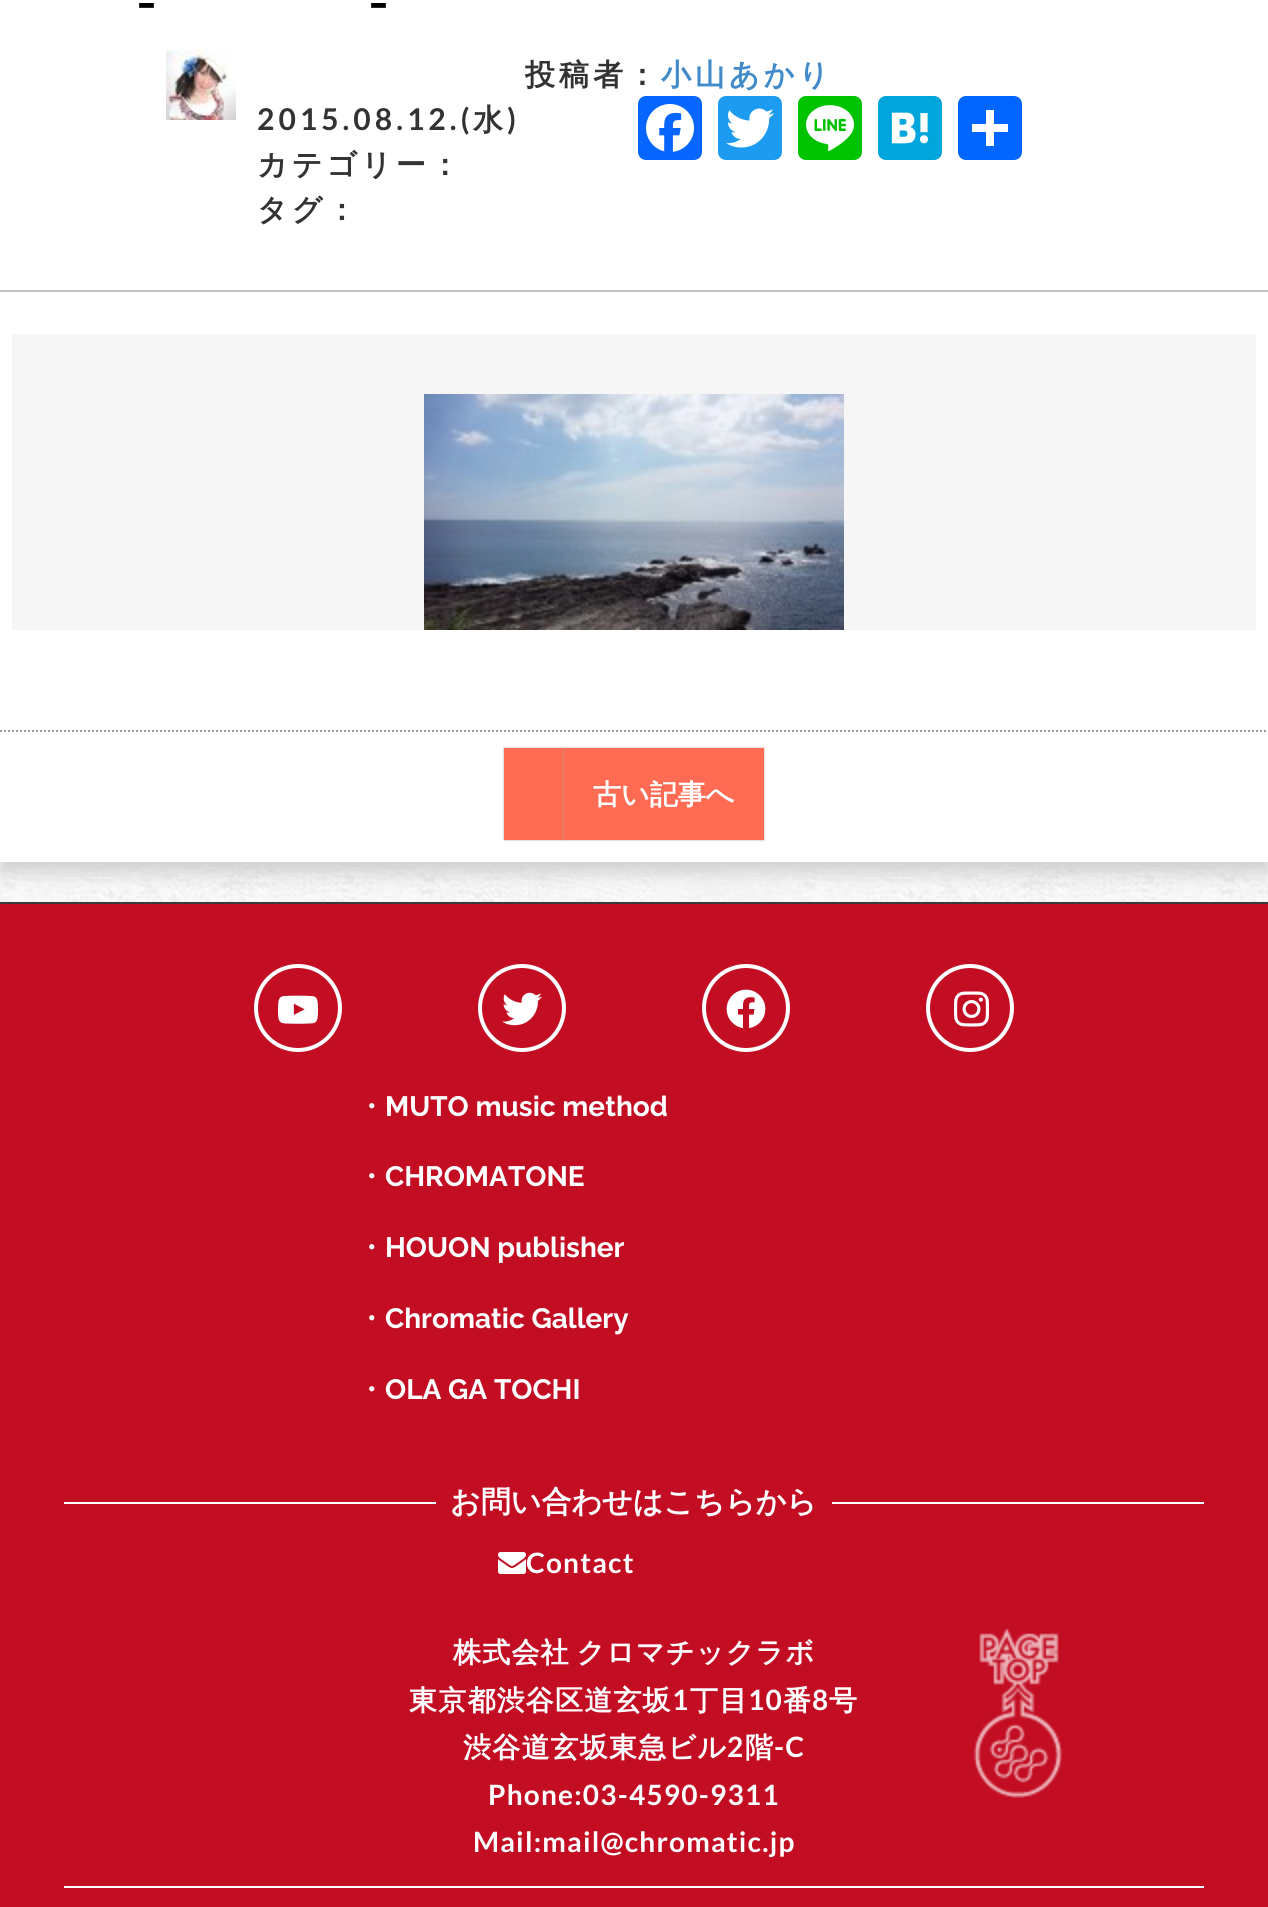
#include <cairo.h>
#include <math.h>
#include <stddef.h>


static void spaced_text(cairo_t *cr, double x, double y, const char *s, double letter, double word) {
    cairo_move_to(cr, x, y);
    while (*s) {
        char ch[5] = {0};
        int n = 0;
        do ch[n++] = *s++; while ((*s & 0xC0) == 0x80);
        cairo_show_text(cr, ch);
        cairo_rel_move_to(cr, letter + word * (*ch == ' '), 0);
    }
}

static void round_rect(cairo_t *cr, double x, double y, double w, double h, double r) {
    cairo_new_sub_path(cr);
    cairo_arc(cr, x + w - r, y + h - r, r, 0, M_PI / 2);
    cairo_arc(cr, x + r, y + h - r, r, M_PI / 2, M_PI);
    cairo_arc(cr, x + r, y + r, r, M_PI, 1.5 * M_PI);
    cairo_arc(cr, x + w - r, y + r, r, 1.5 * M_PI, 2 * M_PI);
    cairo_close_path(cr);
}

static void shadow(cairo_t *cr, double x, double y, double w, double h, double r, double blur, double alpha) {
    cairo_push_group_with_content(cr, CAIRO_CONTENT_ALPHA);
    cairo_set_operator(cr, CAIRO_OPERATOR_SOURCE);
    for (int i = 15; i >= -15 && fmin(w, h) + blur * i / 3 > 0; i -= 2) {
        double e = blur * i / 6;
        cairo_set_source_rgba(cr, 0, 0, 0, alpha * erfc((i - 1) / 8.5) / 2);
        round_rect(cr, x - e, y - e, w + 2 * e, h + 2 * e, fmax(0, fmin(r + e + blur * .6, fmin(w, h) / 2 + e)));
        cairo_fill(cr);
    }
    cairo_pattern_t *soft = cairo_pop_group(cr);
    cairo_mask(cr, soft);
    cairo_pattern_destroy(soft);
}

static void picture(cairo_t *cr, const char *path, double x, double y, double w, double h) {
    cairo_surface_t *image = cairo_image_surface_create_from_png(path);
    cairo_save(cr);
    cairo_set_source_surface(cr, image, x, y);
    cairo_rectangle(cr, x, y, w, h);
    cairo_fill(cr);
    cairo_restore(cr);
    cairo_surface_destroy(image);
}

int main(void) {
    cairo_surface_t *surface = cairo_image_surface_create(CAIRO_FORMAT_RGB24, 1268, 1907);
    cairo_t *cr = cairo_create(surface);
    cairo_font_options_t *options = cairo_font_options_create();
    cairo_font_options_set_hint_metrics(options, CAIRO_HINT_METRICS_OFF);
    cairo_font_options_set_hint_style(options, CAIRO_HINT_STYLE_NONE);
    cairo_set_font_options(cr, options);
    cairo_set_miter_limit(cr, 4);
    cairo_set_source_rgb(cr, 1, 1, 1);
    cairo_paint(cr);
    picture(cr, "img1.png", 0, 862, 1268, 40);
    cairo_set_source_rgb(cr, 0.227, 0.227, 0.227);
    cairo_rectangle(cr, 0, 902, 1268, 2);
    cairo_fill(cr);
    cairo_set_source_rgb(cr, 0.8, 0.8, 0.8);
    shadow(cr, 0, -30, 1268, 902, 0, 10, 1);
    cairo_set_source_rgb(cr, 1, 1, 1);
    cairo_rectangle(cr, 0, 0, 1268, 862);
    cairo_fill(cr);
    cairo_select_font_face(cr, "Raleway", CAIRO_FONT_SLANT_NORMAL, CAIRO_FONT_WEIGHT_BOLD);
    cairo_set_font_size(cr, 40);
    cairo_set_source_rgb(cr, 0, 0, 0);
    spaced_text(cr, 137, 3, "_", 4, 0);
    spaced_text(cr, 369, 3, "_", 4, 0);
    picture(cr, "img2.png", 166, 50, 70, 70);
    cairo_select_font_face(cr, "WenQuanYi Zen Hei", CAIRO_FONT_SLANT_NORMAL, CAIRO_FONT_WEIGHT_BOLD);
    cairo_set_font_size(cr, 30);
    cairo_set_source_rgb(cr, 0.2, 0.2, 0.2);
    spaced_text(cr, 525, 85, "投稿者：", 4, 0);
    cairo_set_source_rgb(cr, 0.259, 0.545, 0.792);
    spaced_text(cr, 661, 85, "小山あかり", 4, 0);
    cairo_select_font_face(cr, "Lato", CAIRO_FONT_SLANT_NORMAL, CAIRO_FONT_WEIGHT_BOLD);
    cairo_set_source_rgb(cr, 0.2, 0.2, 0.2);
    spaced_text(cr, 257, 130, "2015.08.12.(", 4, 0);
    cairo_select_font_face(cr, "WenQuanYi Zen Hei", CAIRO_FONT_SLANT_NORMAL, CAIRO_FONT_WEIGHT_BOLD);
    spaced_text(cr, 473, 130, "水", 4, 0);
    cairo_select_font_face(cr, "Lato", CAIRO_FONT_SLANT_NORMAL, CAIRO_FONT_WEIGHT_BOLD);
    spaced_text(cr, 507, 130, ")", 4, 0);
    cairo_select_font_face(cr, "WenQuanYi Zen Hei", CAIRO_FONT_SLANT_NORMAL, CAIRO_FONT_WEIGHT_BOLD);
    spaced_text(cr, 257, 175, "カテゴリー：", 4, 0);
    spaced_text(cr, 257, 220, "タグ：", 4, 0);
    cairo_set_source_rgb(cr, 0.031, 0.4, 1);
    round_rect(cr, 638, 96, 64, 64, 8);
    cairo_fill(cr);
    picture(cr, "img3.png", 646, 104, 48, 48);
    cairo_set_source_rgb(cr, 0.114, 0.608, 0.941);
    round_rect(cr, 718, 96, 64, 64, 8);
    cairo_fill(cr);
    picture(cr, "img4.png", 726, 108, 48, 40);
    cairo_set_source_rgb(cr, 0, 0.765, 0);
    round_rect(cr, 798, 96, 64, 64, 8);
    cairo_fill(cr);
    picture(cr, "img5.png", 806, 105, 48, 46);
    cairo_set_source_rgb(cr, 0, 0.651, 0.859);
    round_rect(cr, 878, 96, 64, 64, 8);
    cairo_fill(cr);
    picture(cr, "img6.png", 891, 112, 38, 32);
    cairo_set_source_rgb(cr, 0.004, 0.4, 1);
    round_rect(cr, 958, 96, 64, 64, 8);
    cairo_fill(cr);
    cairo_set_source_rgb(cr, 1, 1, 1);
    cairo_rectangle(cr, 986, 110, 8, 36);
    cairo_fill(cr);
    cairo_rectangle(cr, 972, 124, 36, 8);
    cairo_fill(cr);
    cairo_new_path(cr);
    cairo_move_to(cr, 0, 731);
    cairo_line_to(cr, 1268, 731);
    cairo_set_source_rgb(cr, 0.6, 0.6, 0.6);
    cairo_set_dash(cr, (double[]){2, 2}, 2, 0);
    cairo_stroke(cr);
    cairo_set_source_rgb(cr, 0.753, 0.769, 0.78);
    cairo_rectangle(cr, 0, 290, 1268, 2);
    cairo_fill(cr);
    cairo_set_source_rgb(cr, 0.961, 0.961, 0.961);
    cairo_rectangle(cr, 12, 334, 1244, 296);
    cairo_fill(cr);
    picture(cr, "img7.png", 424, 394, 420, 236);
    cairo_set_source_rgb(cr, 0.678, 0.678, 0.678);
    shadow(cr, 504, 748, 60, 92, 0, 1, 1);
    cairo_set_source_rgb(cr, 1, 0.42, 0.325);
    cairo_rectangle(cr, 504, 748, 60, 92);
    cairo_fill(cr);
    cairo_set_source_rgb(cr, 0.678, 0.678, 0.678);
    shadow(cr, 564, 748, 200, 92, 0, 1, 1);
    cairo_set_source_rgb(cr, 1, 0.42, 0.325);
    cairo_rectangle(cr, 564, 748, 200, 92);
    cairo_fill(cr);
    cairo_set_font_size(cr, 28);
    cairo_set_source_rgb(cr, 1, 1, 1);
    cairo_move_to(cr, 593, 804);
    cairo_show_text(cr, "古い記事へ");
    cairo_set_source_rgb(cr, 0.765, 0.051, 0.137);
    cairo_rectangle(cr, 0, 904, 1268, 1003);
    cairo_fill(cr);
    cairo_arc(cr, 298, 1008, 42, 0, 2 * M_PI);
    cairo_set_source_rgb(cr, 1, 1, 1);
    cairo_set_line_width(cr, 4);
    cairo_set_dash(cr, NULL, 0, 0);
    cairo_stroke(cr);
    picture(cr, "img8.png", 278, 995, 40, 29);
    cairo_arc(cr, 522, 1008, 42, 0, 2 * M_PI);
    cairo_stroke(cr);
    picture(cr, "img9.png", 502, 992, 40, 34);
    cairo_arc(cr, 746, 1008, 42, 0, 2 * M_PI);
    cairo_stroke(cr);
    picture(cr, "img10.png", 726, 989, 40, 40);
    cairo_arc(cr, 970, 1008, 42, 0, 2 * M_PI);
    cairo_stroke(cr);
    picture(cr, "img11.png", 954, 991, 35, 36);
    cairo_move_to(cr, 357, 1116);
    cairo_show_text(cr, "・");
    cairo_select_font_face(cr, "Raleway", CAIRO_FONT_SLANT_NORMAL, CAIRO_FONT_WEIGHT_BOLD);
    cairo_move_to(cr, 385, 1116);
    cairo_show_text(cr, "MUTO music method");
    cairo_select_font_face(cr, "WenQuanYi Zen Hei", CAIRO_FONT_SLANT_NORMAL, CAIRO_FONT_WEIGHT_BOLD);
    cairo_move_to(cr, 357, 1186);
    cairo_show_text(cr, "・");
    cairo_select_font_face(cr, "Raleway", CAIRO_FONT_SLANT_NORMAL, CAIRO_FONT_WEIGHT_BOLD);
    cairo_move_to(cr, 385, 1186);
    cairo_show_text(cr, "CHROMATONE");
    cairo_select_font_face(cr, "WenQuanYi Zen Hei", CAIRO_FONT_SLANT_NORMAL, CAIRO_FONT_WEIGHT_BOLD);
    cairo_move_to(cr, 357, 1257);
    cairo_show_text(cr, "・");
    cairo_select_font_face(cr, "Raleway", CAIRO_FONT_SLANT_NORMAL, CAIRO_FONT_WEIGHT_BOLD);
    cairo_move_to(cr, 385, 1257);
    cairo_show_text(cr, "HOUON publisher");
    cairo_select_font_face(cr, "WenQuanYi Zen Hei", CAIRO_FONT_SLANT_NORMAL, CAIRO_FONT_WEIGHT_BOLD);
    cairo_move_to(cr, 357, 1328);
    cairo_show_text(cr, "・");
    cairo_select_font_face(cr, "Raleway", CAIRO_FONT_SLANT_NORMAL, CAIRO_FONT_WEIGHT_BOLD);
    cairo_move_to(cr, 385, 1328);
    cairo_show_text(cr, "Chromatic Gallery");
    cairo_select_font_face(cr, "WenQuanYi Zen Hei", CAIRO_FONT_SLANT_NORMAL, CAIRO_FONT_WEIGHT_BOLD);
    cairo_move_to(cr, 357, 1399);
    cairo_show_text(cr, "・");
    cairo_select_font_face(cr, "Raleway", CAIRO_FONT_SLANT_NORMAL, CAIRO_FONT_WEIGHT_BOLD);
    cairo_move_to(cr, 385, 1399);
    cairo_show_text(cr, "OLA GA TOCHI");
    cairo_rectangle(cr, 64, 1502, 1140, 2);
    cairo_fill(cr);
    cairo_set_source_rgb(cr, 0.765, 0.051, 0.137);
    cairo_rectangle(cr, 436, 1502, 396, 2);
    cairo_fill(cr);
    cairo_select_font_face(cr, "WenQuanYi Zen Hei", CAIRO_FONT_SLANT_NORMAL, CAIRO_FONT_WEIGHT_BOLD);
    cairo_set_font_size(cr, 30);
    cairo_set_source_rgb(cr, 1, 1, 1);
    cairo_move_to(cr, 450, 1512);
    cairo_show_text(cr, "お問い合わせはこちらから");
    picture(cr, "img12.png", 498, 1552, 28, 22);
    cairo_select_font_face(cr, "Lato", CAIRO_FONT_SLANT_NORMAL, CAIRO_FONT_WEIGHT_BOLD);
    cairo_set_font_size(cr, 28);
    spaced_text(cr, 526, 1573, "Contact", 1.2, 0);
    cairo_rectangle(cr, 64, 1886, 1140, 2);
    cairo_fill(cr);
    cairo_select_font_face(cr, "WenQuanYi Zen Hei", CAIRO_FONT_SLANT_NORMAL, CAIRO_FONT_WEIGHT_BOLD);
    spaced_text(cr, 453, 1662, "株式会社 クロマチックラボ", 1.2, -3);
    spaced_text(cr, 409, 1710, "東京都渋谷区道玄坂", 1.2, 0);
    cairo_select_font_face(cr, "Lato", CAIRO_FONT_SLANT_NORMAL, CAIRO_FONT_WEIGHT_BOLD);
    spaced_text(cr, 672, 1710, "1", 1.2, 0);
    cairo_select_font_face(cr, "WenQuanYi Zen Hei", CAIRO_FONT_SLANT_NORMAL, CAIRO_FONT_WEIGHT_BOLD);
    spaced_text(cr, 690, 1710, "丁目", 1.2, 0);
    cairo_select_font_face(cr, "Lato", CAIRO_FONT_SLANT_NORMAL, CAIRO_FONT_WEIGHT_BOLD);
    spaced_text(cr, 748, 1710, "10", 1.2, 0);
    cairo_select_font_face(cr, "WenQuanYi Zen Hei", CAIRO_FONT_SLANT_NORMAL, CAIRO_FONT_WEIGHT_BOLD);
    spaced_text(cr, 783, 1710, "番", 1.2, 0);
    cairo_select_font_face(cr, "Lato", CAIRO_FONT_SLANT_NORMAL, CAIRO_FONT_WEIGHT_BOLD);
    spaced_text(cr, 812, 1710, "8", 1.2, 0);
    cairo_select_font_face(cr, "WenQuanYi Zen Hei", CAIRO_FONT_SLANT_NORMAL, CAIRO_FONT_WEIGHT_BOLD);
    spaced_text(cr, 829, 1710, "号", 1.2, 0);
    spaced_text(cr, 463, 1757, "渋谷道玄坂東急ビル", 1.2, 0);
    cairo_select_font_face(cr, "Lato", CAIRO_FONT_SLANT_NORMAL, CAIRO_FONT_WEIGHT_BOLD);
    spaced_text(cr, 727, 1757, "2", 1.2, 0);
    cairo_select_font_face(cr, "WenQuanYi Zen Hei", CAIRO_FONT_SLANT_NORMAL, CAIRO_FONT_WEIGHT_BOLD);
    spaced_text(cr, 745, 1757, "階", 1.2, 0);
    cairo_select_font_face(cr, "Lato", CAIRO_FONT_SLANT_NORMAL, CAIRO_FONT_WEIGHT_BOLD);
    spaced_text(cr, 774, 1757, "-C", 1.2, 0);
    spaced_text(cr, 488, 1805, "Phone:03-4590-9311", 1.2, 0);
    spaced_text(cr, 473, 1852, "Mail:mail@chromatic.jp", 1.2, 0);
    picture(cr, "img13.png", 973, 1628, 90, 170);
    cairo_surface_write_to_png(surface, "page.png");
    cairo_font_options_destroy(options);
    cairo_destroy(cr);
    cairo_surface_destroy(surface);
    return 0;
}
